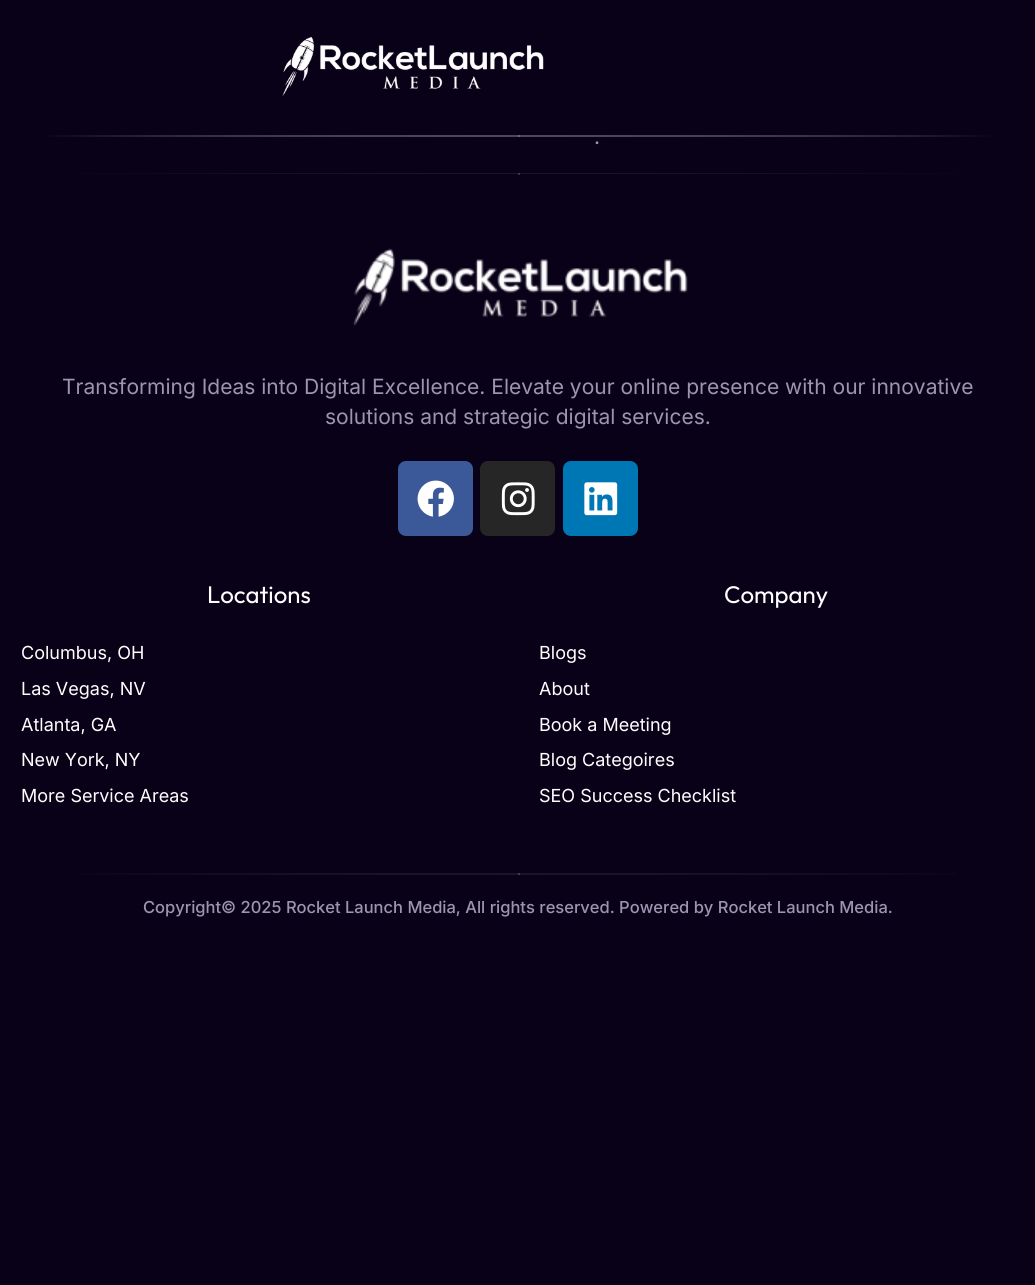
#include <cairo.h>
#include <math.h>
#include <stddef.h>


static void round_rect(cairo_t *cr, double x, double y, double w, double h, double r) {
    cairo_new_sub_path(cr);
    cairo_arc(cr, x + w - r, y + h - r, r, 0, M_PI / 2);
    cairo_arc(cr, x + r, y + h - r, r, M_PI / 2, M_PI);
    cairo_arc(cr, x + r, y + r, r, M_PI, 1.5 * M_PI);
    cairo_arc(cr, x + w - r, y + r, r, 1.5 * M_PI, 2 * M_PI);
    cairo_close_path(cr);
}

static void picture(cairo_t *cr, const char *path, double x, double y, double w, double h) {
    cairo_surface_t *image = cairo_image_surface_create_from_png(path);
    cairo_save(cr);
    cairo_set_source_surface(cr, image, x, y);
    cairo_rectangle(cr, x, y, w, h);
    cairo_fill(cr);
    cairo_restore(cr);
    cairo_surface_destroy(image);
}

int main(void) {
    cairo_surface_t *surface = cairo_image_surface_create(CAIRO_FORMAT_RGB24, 1035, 1285);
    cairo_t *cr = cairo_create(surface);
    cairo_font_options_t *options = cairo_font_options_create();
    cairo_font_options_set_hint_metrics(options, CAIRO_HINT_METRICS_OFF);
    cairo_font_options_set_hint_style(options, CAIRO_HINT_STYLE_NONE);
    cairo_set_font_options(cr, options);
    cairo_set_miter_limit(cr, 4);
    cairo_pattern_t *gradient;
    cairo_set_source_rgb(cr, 0.039, 0.004, 0.094);
    cairo_paint(cr);
    picture(cr, "img1.png", 282, 36, 262, 61);
    gradient = cairo_pattern_create_radial(0, 0, 0, 0, 0, 1);
    cairo_pattern_set_matrix(gradient, &(cairo_matrix_t){1.0 / 732, 0, 0, 1.0 / 1.1, -1.0 * 518 / 732, -1.0 * 136 / 1.1});
    cairo_pattern_add_color_stop_rgba(gradient, 0, 1, 1, 1, 0.17);
    cairo_pattern_add_color_stop_rgba(gradient, 0.8, 0.039, 0.004, 0.094, 1);
    cairo_set_source(cr, gradient);
    cairo_pattern_destroy(gradient);
    cairo_rectangle(cr, 46, 135, 944, 2);
    cairo_fill(cr);
    cairo_set_source_rgb(cr, 0.424, 0.404, 0.459);
    cairo_rectangle(cr, 518, 135, 2, 2);
    cairo_fill(cr);
    cairo_select_font_face(cr, "Inter", CAIRO_FONT_SLANT_NORMAL, CAIRO_FONT_WEIGHT_NORMAL);
    cairo_set_font_size(cr, 21);
    cairo_set_source_rgb(cr, 0.608, 0.588, 0.69);
    cairo_move_to(cr, 594, 144);
    cairo_show_text(cr, ".");
    gradient = cairo_pattern_create_radial(0, 0, 0, 0, 0, 1);
    cairo_pattern_set_matrix(gradient, &(cairo_matrix_t){1.0 / 732, 0, 0, 1.0 / 1.1, -1.0 * 518 / 732, -1.0 * 173 / 1.1});
    cairo_pattern_add_color_stop_rgba(gradient, 0, 0.204, 0.173, 0.247, 1);
    cairo_pattern_add_color_stop_rgba(gradient, 0.8, 0.039, 0.004, 0.094, 1);
    cairo_set_source(cr, gradient);
    cairo_pattern_destroy(gradient);
    cairo_rectangle(cr, 80, 173, 876, 1);
    cairo_fill(cr);
    gradient = cairo_pattern_create_radial(0, 0, 0, 0, 0, 1);
    cairo_pattern_set_matrix(gradient, &(cairo_matrix_t){1.0 / 732, 0, 0, 1.0 / 1.1, -1.0 * 518 / 732, -1.0 * 173 / 1.1});
    cairo_pattern_add_color_stop_rgba(gradient, 0, 0.341, 0.314, 0.376, 1);
    cairo_pattern_add_color_stop_rgba(gradient, 0.8, 0.204, 0.173, 0.247, 1);
    cairo_set_source(cr, gradient);
    cairo_pattern_destroy(gradient);
    cairo_rectangle(cr, 518, 173, 2, 2);
    cairo_fill(cr);
    picture(cr, "img2.png", 353, 248, 335, 78);
    cairo_set_source_rgb(cr, 0.608, 0.588, 0.69);
    cairo_move_to(cr, 62, 394);
    cairo_show_text(cr, "Transforming Ideas into Digital Excellence. Elevate your online presence with our innovative");
    cairo_move_to(cr, 325, 424);
    cairo_show_text(cr, "solutions and strategic digital services.");
    cairo_set_source_rgb(cr, 0.231, 0.349, 0.596);
    round_rect(cr, 398, 461, 75, 75, 8);
    cairo_fill(cr);
    picture(cr, "img3.png", 417, 480, 37, 37);
    cairo_set_source_rgb(cr, 0.149, 0.149, 0.149);
    round_rect(cr, 480, 461, 75, 75, 8);
    cairo_fill(cr);
    picture(cr, "img4.png", 501, 482, 34, 34);
    cairo_set_source_rgb(cr, 0, 0.467, 0.71);
    round_rect(cr, 563, 461, 75, 75, 8);
    cairo_fill(cr);
    picture(cr, "img5.png", 584, 482, 34, 34);
    cairo_select_font_face(cr, "Outfit", CAIRO_FONT_SLANT_NORMAL, CAIRO_FONT_WEIGHT_NORMAL);
    cairo_set_font_size(cr, 24);
    cairo_set_source_rgb(cr, 1, 1, 1);
    cairo_move_to(cr, 207, 603);
    cairo_show_text(cr, "Locations");
    cairo_select_font_face(cr, "Inter", CAIRO_FONT_SLANT_NORMAL, CAIRO_FONT_WEIGHT_NORMAL);
    cairo_set_font_size(cr, 18);
    cairo_move_to(cr, 21, 659);
    cairo_show_text(cr, "Columbus, OH");
    cairo_move_to(cr, 21, 695);
    cairo_show_text(cr, "Las Vegas, NV");
    cairo_move_to(cr, 21, 731);
    cairo_show_text(cr, "Atlanta, GA");
    cairo_move_to(cr, 21, 766);
    cairo_show_text(cr, "New York, NY");
    cairo_move_to(cr, 21, 802);
    cairo_show_text(cr, "More Service Areas");
    cairo_select_font_face(cr, "Outfit", CAIRO_FONT_SLANT_NORMAL, CAIRO_FONT_WEIGHT_NORMAL);
    cairo_set_font_size(cr, 24);
    cairo_move_to(cr, 724, 603);
    cairo_show_text(cr, "Company");
    cairo_select_font_face(cr, "Inter", CAIRO_FONT_SLANT_NORMAL, CAIRO_FONT_WEIGHT_NORMAL);
    cairo_set_font_size(cr, 18);
    cairo_move_to(cr, 539, 659);
    cairo_show_text(cr, "Blogs");
    cairo_move_to(cr, 539, 695);
    cairo_show_text(cr, "About");
    cairo_move_to(cr, 539, 731);
    cairo_show_text(cr, "Book a Meeting");
    cairo_move_to(cr, 539, 766);
    cairo_show_text(cr, "Blog Categoires");
    cairo_move_to(cr, 539, 802);
    cairo_show_text(cr, "SEO Success Checklist");
    gradient = cairo_pattern_create_radial(0, 0, 0, 0, 0, 1);
    cairo_pattern_set_matrix(gradient, &(cairo_matrix_t){1.0 / 732, 0, 0, 1.0 / 1.1, -1.0 * 518 / 732, -1.0 * 874 / 1.1});
    cairo_pattern_add_color_stop_rgba(gradient, 0, 0.204, 0.173, 0.247, 1);
    cairo_pattern_add_color_stop_rgba(gradient, 0.8, 0.039, 0.004, 0.094, 1);
    cairo_set_source(cr, gradient);
    cairo_pattern_destroy(gradient);
    cairo_rectangle(cr, 80, 873, 876, 2);
    cairo_fill(cr);
    cairo_set_source_rgb(cr, 0.263, 0.235, 0.302);
    cairo_rectangle(cr, 518, 873, 2, 2);
    cairo_fill(cr);
    cairo_select_font_face(cr, "Inter Medium", CAIRO_FONT_SLANT_NORMAL, CAIRO_FONT_WEIGHT_NORMAL);
    cairo_set_font_size(cr, 16.5);
    cairo_set_source_rgb(cr, 0.608, 0.588, 0.69);
    cairo_move_to(cr, 143, 913);
    cairo_show_text(cr, "Copyright© 2025 Rocket Launch Media, All rights reserved. Powered by Rocket Launch Media.");
    cairo_surface_write_to_png(surface, "page.png");
    cairo_font_options_destroy(options);
    cairo_destroy(cr);
    cairo_surface_destroy(surface);
    return 0;
}
